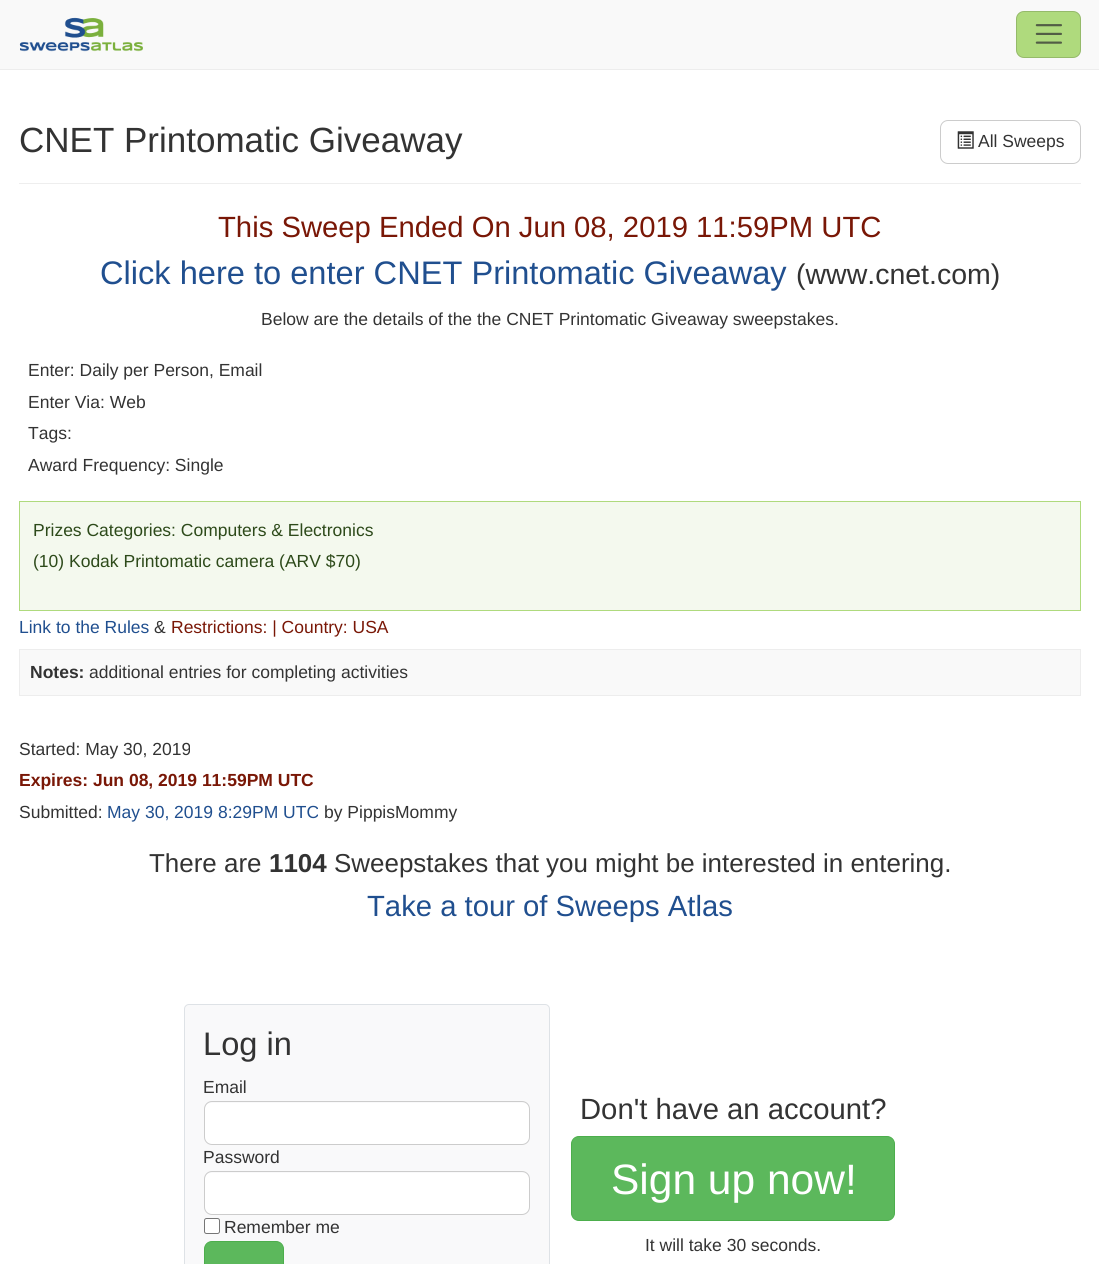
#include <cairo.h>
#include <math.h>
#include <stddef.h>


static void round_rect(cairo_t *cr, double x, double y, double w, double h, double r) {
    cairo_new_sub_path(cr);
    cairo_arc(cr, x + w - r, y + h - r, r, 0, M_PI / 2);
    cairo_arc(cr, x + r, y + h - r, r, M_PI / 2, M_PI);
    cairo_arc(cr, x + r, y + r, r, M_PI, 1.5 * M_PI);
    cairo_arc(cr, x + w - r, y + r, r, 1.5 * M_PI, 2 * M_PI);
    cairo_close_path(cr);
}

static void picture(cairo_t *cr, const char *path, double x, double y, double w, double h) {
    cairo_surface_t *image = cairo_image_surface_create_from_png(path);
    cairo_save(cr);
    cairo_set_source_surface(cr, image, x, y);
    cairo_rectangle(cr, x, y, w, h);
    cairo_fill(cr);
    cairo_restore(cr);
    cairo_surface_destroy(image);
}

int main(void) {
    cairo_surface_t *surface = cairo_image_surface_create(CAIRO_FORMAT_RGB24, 1099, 1264);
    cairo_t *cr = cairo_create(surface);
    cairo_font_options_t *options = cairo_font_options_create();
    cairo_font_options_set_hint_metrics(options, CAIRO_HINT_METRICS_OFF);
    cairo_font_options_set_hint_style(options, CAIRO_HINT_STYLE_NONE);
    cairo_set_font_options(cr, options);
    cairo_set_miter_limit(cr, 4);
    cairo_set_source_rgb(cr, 1, 1, 1);
    cairo_paint(cr);
    cairo_set_source_rgb(cr, 0.973, 0.973, 0.973);
    cairo_rectangle(cr, 0, 0, 1099, 69);
    cairo_fill(cr);
    cairo_set_source_rgb(cr, 0.929, 0.929, 0.929);
    cairo_rectangle(cr, 0, 69, 1099, 1);
    cairo_fill(cr);
    picture(cr, "img1.png", 19, 17, 124, 35);
    cairo_set_source_rgb(cr, 0.686, 0.855, 0.49);
    round_rect(cr, 1016, 11, 65, 47, 8);
    cairo_fill(cr);
    round_rect(cr, 1016.5, 11.5, 64, 46, 7.5);
    cairo_set_source_rgba(cr, 0, 0, 0, 0.15);
    cairo_set_line_width(cr, 1);
    cairo_stroke(cr);
    picture(cr, "img2.png", 1035, 24, 27, 20);
    cairo_set_source_rgb(cr, 0.933, 0.933, 0.933);
    cairo_rectangle(cr, 19, 183, 1062, 1);
    cairo_fill(cr);
    cairo_select_font_face(cr, "Liberation Sans", CAIRO_FONT_SLANT_NORMAL, CAIRO_FONT_WEIGHT_NORMAL);
    cairo_set_font_size(cr, 35);
    cairo_set_source_rgb(cr, 0.2, 0.2, 0.2);
    cairo_move_to(cr, 19, 152);
    cairo_show_text(cr, "CNET Printomatic Giveaway");
    round_rect(cr, 940.5, 120.5, 140, 43, 7.5);
    cairo_set_source_rgb(cr, 0.8, 0.8, 0.8);
    cairo_stroke(cr);
    picture(cr, "img3.png", 957, 131, 17, 18);
    cairo_set_font_size(cr, 17.5);
    cairo_set_source_rgb(cr, 0.2, 0.2, 0.2);
    cairo_move_to(cr, 978, 147);
    cairo_show_text(cr, "All Sweeps");
    cairo_set_font_size(cr, 29.25);
    cairo_set_source_rgb(cr, 0.475, 0.09, 0.027);
    cairo_move_to(cr, 218, 237);
    cairo_show_text(cr, "This Sweep Ended On Jun 08, 2019 11:59PM UTC");
    cairo_set_font_size(cr, 32.6);
    cairo_set_source_rgb(cr, 0.125, 0.31, 0.561);
    cairo_move_to(cr, 100, 284);
    cairo_show_text(cr, "Click here to enter CNET Printomatic Giveaway");
    cairo_set_font_size(cr, 28.5);
    cairo_set_source_rgb(cr, 0.2, 0.2, 0.2);
    cairo_move_to(cr, 796, 284);
    cairo_show_text(cr, "(www.cnet.com)");
    cairo_set_font_size(cr, 17.5);
    cairo_move_to(cr, 261, 325);
    cairo_show_text(cr, "Below are the details of the the CNET Printomatic Giveaway sweepstakes.");
    cairo_move_to(cr, 28, 376);
    cairo_show_text(cr, "Enter: Daily per Person, Email");
    cairo_move_to(cr, 28, 408);
    cairo_show_text(cr, "Enter Via: Web");
    cairo_move_to(cr, 28, 439);
    cairo_show_text(cr, "Tags:");
    cairo_move_to(cr, 28, 471);
    cairo_show_text(cr, "Award Frequency: Single");
    cairo_set_source_rgb(cr, 0.957, 0.976, 0.933);
    cairo_rectangle(cr, 19.5, 501.5, 1061, 109);
    cairo_fill_preserve(cr);
    cairo_set_source_rgb(cr, 0.686, 0.855, 0.49);
    cairo_stroke(cr);
    cairo_set_source_rgb(cr, 0.176, 0.29, 0.102);
    cairo_move_to(cr, 33, 536);
    cairo_show_text(cr, "Prizes Categories: Computers & Electronics");
    cairo_move_to(cr, 33, 567);
    cairo_show_text(cr, "(10) Kodak Printomatic camera (ARV $70)");
    cairo_set_source_rgb(cr, 0.125, 0.31, 0.561);
    cairo_move_to(cr, 19, 633);
    cairo_show_text(cr, "Link to the Rules");
    cairo_set_source_rgb(cr, 0.2, 0.2, 0.2);
    cairo_move_to(cr, 154, 633);
    cairo_show_text(cr, "&");
    cairo_set_source_rgb(cr, 0.475, 0.09, 0.027);
    cairo_move_to(cr, 171, 633);
    cairo_show_text(cr, "Restrictions: | Country: USA");
    cairo_set_source_rgb(cr, 0.973, 0.973, 0.973);
    cairo_rectangle(cr, 19.5, 649.5, 1061, 46);
    cairo_fill_preserve(cr);
    cairo_set_source_rgb(cr, 0.929, 0.929, 0.929);
    cairo_stroke(cr);
    cairo_select_font_face(cr, "Liberation Sans", CAIRO_FONT_SLANT_NORMAL, CAIRO_FONT_WEIGHT_BOLD);
    cairo_set_source_rgb(cr, 0.2, 0.2, 0.2);
    cairo_move_to(cr, 30, 678);
    cairo_show_text(cr, "Notes:");
    cairo_select_font_face(cr, "Liberation Sans", CAIRO_FONT_SLANT_NORMAL, CAIRO_FONT_WEIGHT_NORMAL);
    cairo_move_to(cr, 89, 678);
    cairo_show_text(cr, "additional entries for completing activities");
    cairo_move_to(cr, 19, 755);
    cairo_show_text(cr, "Started: May 30, 2019");
    cairo_select_font_face(cr, "Liberation Sans", CAIRO_FONT_SLANT_NORMAL, CAIRO_FONT_WEIGHT_BOLD);
    cairo_set_source_rgb(cr, 0.475, 0.09, 0.027);
    cairo_move_to(cr, 19, 786);
    cairo_show_text(cr, "Expires: Jun 08, 2019 11:59PM UTC");
    cairo_select_font_face(cr, "Liberation Sans", CAIRO_FONT_SLANT_NORMAL, CAIRO_FONT_WEIGHT_NORMAL);
    cairo_set_source_rgb(cr, 0.2, 0.2, 0.2);
    cairo_move_to(cr, 19, 818);
    cairo_show_text(cr, "Submitted:");
    cairo_set_source_rgb(cr, 0.125, 0.31, 0.561);
    cairo_move_to(cr, 107, 818);
    cairo_show_text(cr, "May 30, 2019 8:29PM UTC");
    cairo_set_source_rgb(cr, 0.2, 0.2, 0.2);
    cairo_move_to(cr, 324, 818);
    cairo_show_text(cr, "by PippisMommy");
    cairo_set_font_size(cr, 25.95);
    cairo_move_to(cr, 149, 872);
    cairo_show_text(cr, "There are");
    cairo_select_font_face(cr, "Liberation Sans", CAIRO_FONT_SLANT_NORMAL, CAIRO_FONT_WEIGHT_BOLD);
    cairo_move_to(cr, 269, 872);
    cairo_show_text(cr, "1104");
    cairo_select_font_face(cr, "Liberation Sans", CAIRO_FONT_SLANT_NORMAL, CAIRO_FONT_WEIGHT_NORMAL);
    cairo_move_to(cr, 334, 872);
    cairo_show_text(cr, "Sweepstakes that you might be interested in entering.");
    cairo_set_font_size(cr, 29.25);
    cairo_set_source_rgb(cr, 0.125, 0.31, 0.561);
    cairo_move_to(cr, 367, 916);
    cairo_show_text(cr, "Take a tour of Sweeps Atlas");
    cairo_set_source_rgb(cr, 0.973, 0.976, 0.98);
    round_rect(cr, 184.5, 1004.5, 365, 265, 4.5);
    cairo_fill_preserve(cr);
    cairo_set_source_rgb(cr, 0.871, 0.886, 0.902);
    cairo_stroke(cr);
    cairo_set_font_size(cr, 32.6);
    cairo_set_source_rgb(cr, 0.2, 0.2, 0.2);
    cairo_move_to(cr, 203, 1055);
    cairo_show_text(cr, "Log in");
    cairo_set_font_size(cr, 17.5);
    cairo_move_to(cr, 203, 1093);
    cairo_show_text(cr, "Email");
    cairo_set_source_rgb(cr, 1, 1, 1);
    round_rect(cr, 205, 1103, 324, 41, 6);
    cairo_fill(cr);
    round_rect(cr, 204.5, 1101.5, 325, 43, 7.5);
    cairo_set_source_rgb(cr, 0.8, 0.8, 0.8);
    cairo_stroke(cr);
    cairo_set_source_rgb(cr, 0.2, 0.2, 0.2);
    cairo_move_to(cr, 203, 1163);
    cairo_show_text(cr, "Password");
    cairo_set_source_rgb(cr, 1, 1, 1);
    round_rect(cr, 205, 1173, 324, 41, 6);
    cairo_fill(cr);
    round_rect(cr, 204.5, 1171.5, 325, 43, 7.5);
    cairo_set_source_rgb(cr, 0.8, 0.8, 0.8);
    cairo_stroke(cr);
    cairo_set_source_rgb(cr, 1, 1, 1);
    round_rect(cr, 204.5, 1218.5, 15, 15, 2);
    cairo_fill_preserve(cr);
    cairo_set_source_rgb(cr, 0.463, 0.463, 0.463);
    cairo_stroke(cr);
    cairo_set_source_rgb(cr, 0.2, 0.2, 0.2);
    cairo_move_to(cr, 224, 1233);
    cairo_show_text(cr, "Remember me");
    cairo_set_source_rgb(cr, 0.361, 0.722, 0.361);
    round_rect(cr, 204.5, 1241.5, 79, 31, 7.5);
    cairo_fill_preserve(cr);
    cairo_set_source_rgb(cr, 0.298, 0.682, 0.298);
    cairo_stroke(cr);
    cairo_set_font_size(cr, 29.25);
    cairo_set_source_rgb(cr, 0.2, 0.2, 0.2);
    cairo_move_to(cr, 580, 1119);
    cairo_show_text(cr, "Don't have an account?");
    cairo_set_source_rgb(cr, 0.361, 0.722, 0.361);
    round_rect(cr, 571.5, 1136.5, 323, 84, 7.5);
    cairo_fill_preserve(cr);
    cairo_set_source_rgb(cr, 0.298, 0.682, 0.298);
    cairo_stroke(cr);
    cairo_set_font_size(cr, 42.5);
    cairo_set_source_rgb(cr, 1, 1, 1);
    cairo_move_to(cr, 611, 1194);
    cairo_show_text(cr, "Sign up now!");
    cairo_set_font_size(cr, 17.5);
    cairo_set_source_rgb(cr, 0.2, 0.2, 0.2);
    cairo_move_to(cr, 645, 1251);
    cairo_show_text(cr, "It will take 30 seconds.");
    cairo_surface_write_to_png(surface, "page.png");
    cairo_font_options_destroy(options);
    cairo_destroy(cr);
    cairo_surface_destroy(surface);
    return 0;
}
